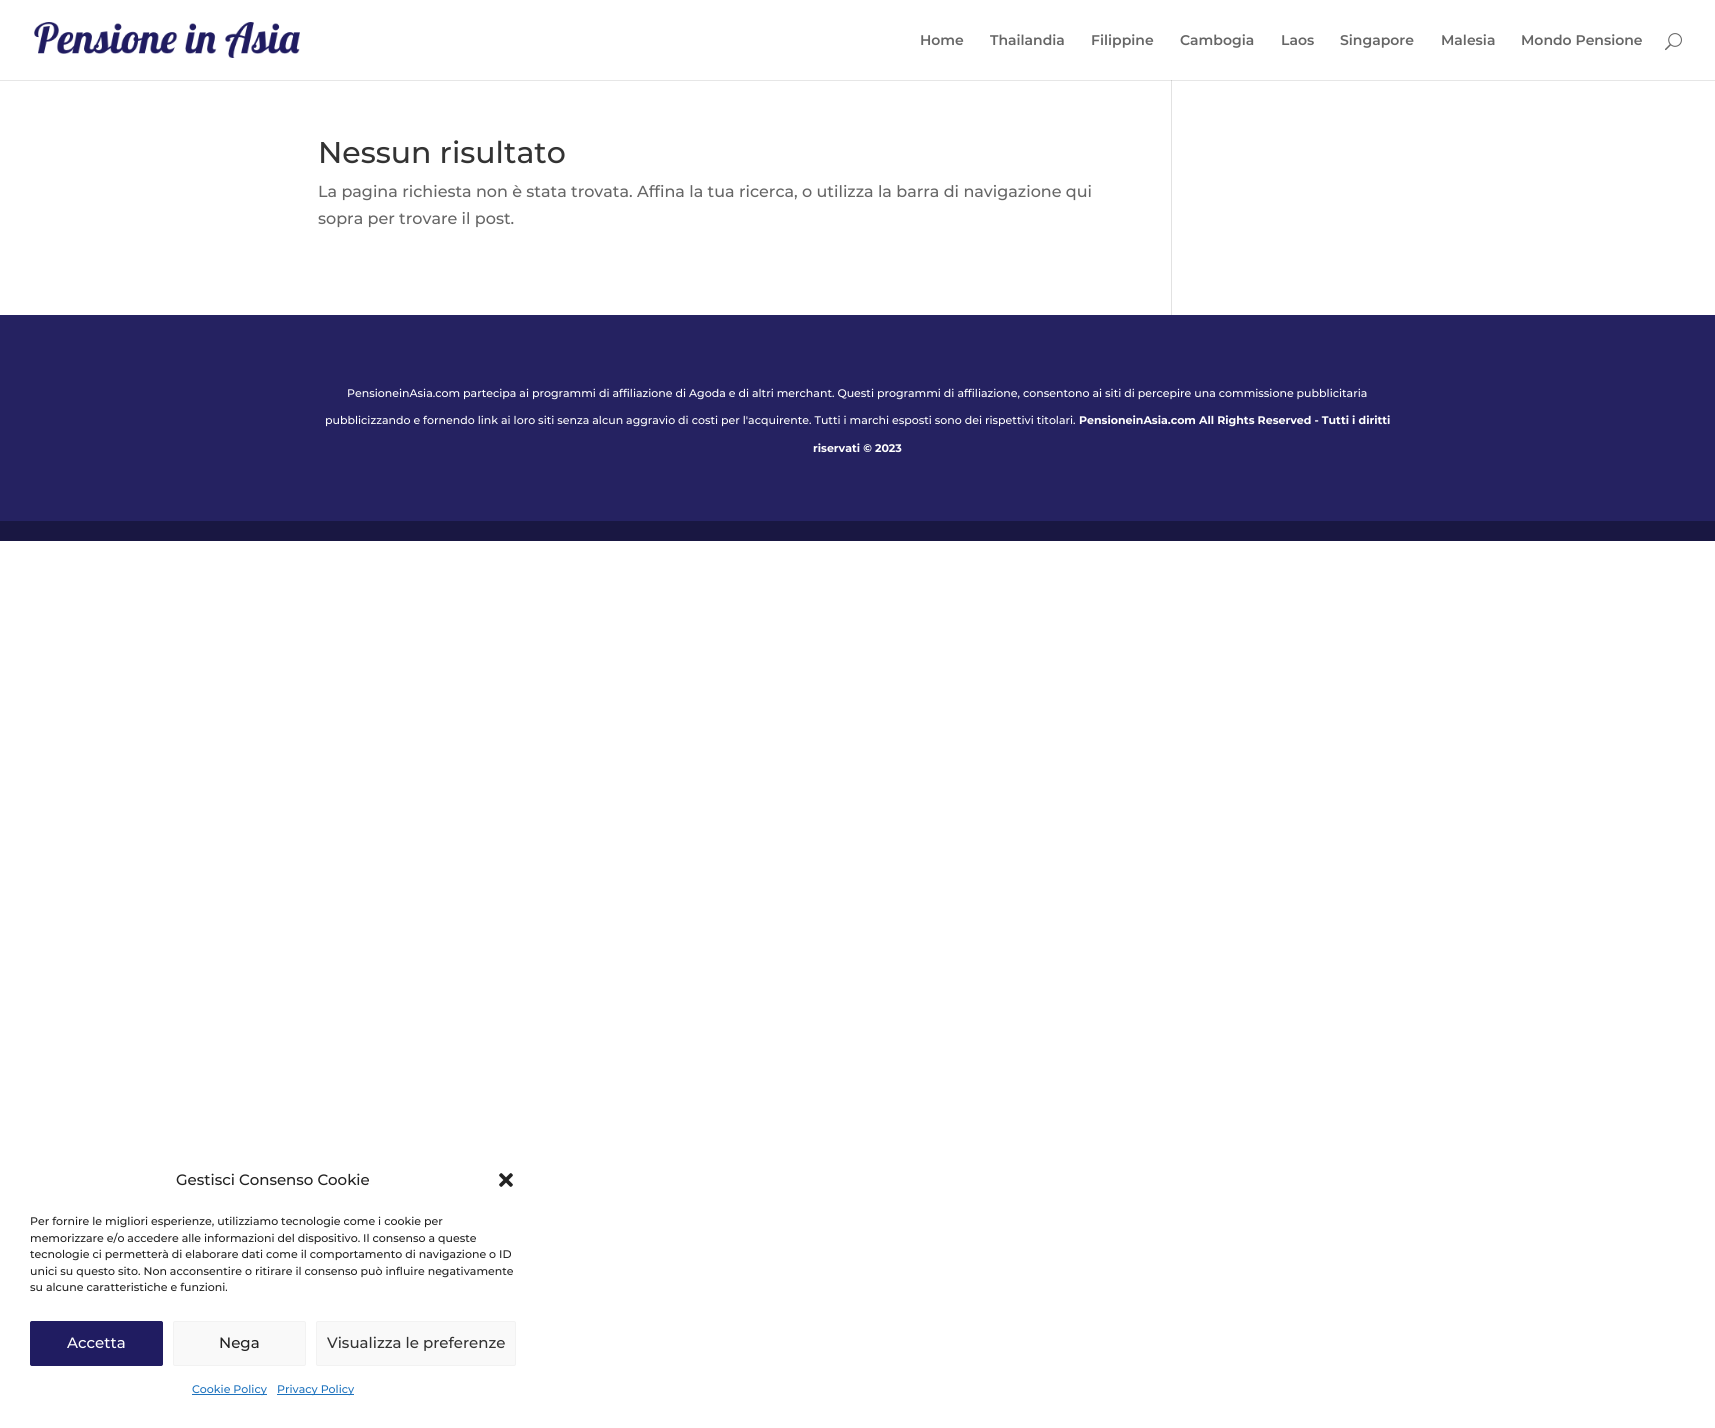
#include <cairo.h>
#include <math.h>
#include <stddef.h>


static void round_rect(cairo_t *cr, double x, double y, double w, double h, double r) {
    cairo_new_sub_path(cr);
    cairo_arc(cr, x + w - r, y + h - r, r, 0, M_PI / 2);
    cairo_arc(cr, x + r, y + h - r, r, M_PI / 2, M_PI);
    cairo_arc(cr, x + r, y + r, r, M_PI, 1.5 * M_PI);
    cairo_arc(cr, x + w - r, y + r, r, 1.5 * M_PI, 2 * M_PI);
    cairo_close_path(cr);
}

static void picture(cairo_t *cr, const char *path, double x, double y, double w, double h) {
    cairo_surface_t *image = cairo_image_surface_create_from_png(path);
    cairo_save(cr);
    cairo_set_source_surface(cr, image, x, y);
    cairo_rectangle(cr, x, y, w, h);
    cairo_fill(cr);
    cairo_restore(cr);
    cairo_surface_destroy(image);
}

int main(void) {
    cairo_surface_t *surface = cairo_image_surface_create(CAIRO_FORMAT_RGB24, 1715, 1428);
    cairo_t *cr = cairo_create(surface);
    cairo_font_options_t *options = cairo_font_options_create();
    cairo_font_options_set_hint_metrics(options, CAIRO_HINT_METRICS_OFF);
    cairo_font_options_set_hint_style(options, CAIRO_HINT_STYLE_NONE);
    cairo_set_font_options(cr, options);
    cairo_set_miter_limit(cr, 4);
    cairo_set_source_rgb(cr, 1, 1, 1);
    cairo_paint(cr);
    cairo_set_source_rgb(cr, 0.902, 0.902, 0.902);
    cairo_rectangle(cr, 0, 80, 1715, 1);
    cairo_fill(cr);
    picture(cr, "img1.png", 34, 22, 266, 36);
    cairo_select_font_face(cr, "Montserrat SemiBold", CAIRO_FONT_SLANT_NORMAL, CAIRO_FONT_WEIGHT_NORMAL);
    cairo_set_font_size(cr, 14);
    cairo_set_source_rgb(cr, 0.4, 0.4, 0.4);
    cairo_move_to(cr, 920, 45);
    cairo_show_text(cr, "Home");
    cairo_move_to(cr, 990, 45);
    cairo_show_text(cr, "Thailandia");
    cairo_move_to(cr, 1091, 45);
    cairo_show_text(cr, "Filippine");
    cairo_move_to(cr, 1180, 45);
    cairo_show_text(cr, "Cambogia");
    cairo_move_to(cr, 1281, 45);
    cairo_show_text(cr, "Laos");
    cairo_move_to(cr, 1340, 45);
    cairo_show_text(cr, "Singapore");
    cairo_move_to(cr, 1441, 45);
    cairo_show_text(cr, "Malesia");
    cairo_move_to(cr, 1521, 45);
    cairo_show_text(cr, "Mondo Pensione");
    picture(cr, "img2.png", 1665, 33, 17, 18);
    cairo_select_font_face(cr, "Montserrat Medium", CAIRO_FONT_SLANT_NORMAL, CAIRO_FONT_WEIGHT_NORMAL);
    cairo_set_font_size(cr, 30);
    cairo_set_source_rgb(cr, 0.2, 0.2, 0.2);
    cairo_move_to(cr, 318, 163);
    cairo_show_text(cr, "Nessun risultato");
    cairo_set_font_size(cr, 16);
    cairo_set_source_rgb(cr, 0.4, 0.4, 0.4);
    cairo_move_to(cr, 318, 197);
    cairo_show_text(cr, "La pagina richiesta non è stata trovata. Affina la tua ricerca, o utilizza la barra di navigazione qui");
    cairo_move_to(cr, 318, 224);
    cairo_show_text(cr, "sopra per trovare il post.");
    cairo_set_source_rgb(cr, 0.886, 0.886, 0.886);
    cairo_rectangle(cr, 1171, 80, 1, 235);
    cairo_fill(cr);
    cairo_set_source_rgb(cr, 0.796, 0.796, 0.796);
    cairo_rectangle(cr, 1171, 80, 1, 1);
    cairo_fill(cr);
    cairo_set_source_rgb(cr, 0.145, 0.133, 0.38);
    cairo_rectangle(cr, 0, 315, 1715, 206);
    cairo_fill(cr);
    cairo_set_font_size(cr, 11);
    cairo_set_source_rgb(cr, 1, 1, 1);
    cairo_move_to(cr, 347, 397);
    cairo_show_text(cr, "PensioneinAsia.com partecipa ai programmi di affiliazione di Agoda e di altri merchant. Questi programmi di affiliazione, consentono ai siti di percepire una commissione pubblicitaria");
    cairo_move_to(cr, 325, 424);
    cairo_show_text(cr, "pubblicizzando e fornendo link ai loro siti senza alcun aggravio di costi per l'acquirente. Tutti i marchi esposti sono dei rispettivi titolari.");
    cairo_select_font_face(cr, "Montserrat", CAIRO_FONT_SLANT_NORMAL, CAIRO_FONT_WEIGHT_BOLD);
    cairo_move_to(cr, 1079, 424);
    cairo_show_text(cr, "PensioneinAsia.com All Rights Reserved - Tutti i diritti");
    cairo_move_to(cr, 813, 452);
    cairo_show_text(cr, "riservati © 2023");
    cairo_set_source_rgb(cr, 0.098, 0.09, 0.259);
    cairo_rectangle(cr, 0, 521, 1715, 20);
    cairo_fill(cr);
    cairo_select_font_face(cr, "Montserrat Medium", CAIRO_FONT_SLANT_NORMAL, CAIRO_FONT_WEIGHT_NORMAL);
    cairo_set_font_size(cr, 15);
    cairo_set_source_rgb(cr, 0.133, 0.133, 0.133);
    cairo_move_to(cr, 176, 1185);
    cairo_show_text(cr, "Gestisci Consenso Cookie");
    picture(cr, "img3.png", 499, 1173, 14, 14);
    cairo_set_font_size(cr, 11);
    cairo_move_to(cr, 30, 1225);
    cairo_show_text(cr, "Per fornire le migliori esperienze, utilizziamo tecnologie come i cookie per");
    cairo_move_to(cr, 30, 1242);
    cairo_show_text(cr, "memorizzare e/o accedere alle informazioni del dispositivo. Il consenso a queste");
    cairo_move_to(cr, 30, 1258);
    cairo_show_text(cr, "tecnologie ci permetterà di elaborare dati come il comportamento di navigazione o ID");
    cairo_move_to(cr, 30, 1275);
    cairo_show_text(cr, "unici su questo sito. Non acconsentire o ritirare il consenso può influire negativamente");
    cairo_move_to(cr, 30, 1291);
    cairo_show_text(cr, "su alcune caratteristiche e funzioni.");
    cairo_set_source_rgb(cr, 0.125, 0.11, 0.38);
    round_rect(cr, 30.5, 1321.5, 132, 44, 1.5);
    cairo_fill_preserve(cr);
    cairo_set_line_width(cr, 1);
    cairo_stroke(cr);
    cairo_set_font_size(cr, 15);
    cairo_set_source_rgb(cr, 1, 1, 1);
    cairo_move_to(cr, 67, 1348);
    cairo_show_text(cr, "Accetta");
    cairo_set_source_rgb(cr, 0.976, 0.976, 0.976);
    round_rect(cr, 173.5, 1321.5, 132, 44, 1.5);
    cairo_fill_preserve(cr);
    cairo_set_source_rgb(cr, 0.949, 0.949, 0.949);
    cairo_stroke(cr);
    cairo_set_source_rgb(cr, 0.133, 0.133, 0.133);
    cairo_move_to(cr, 219, 1348);
    cairo_show_text(cr, "Nega");
    cairo_set_source_rgb(cr, 0.976, 0.976, 0.976);
    round_rect(cr, 316.5, 1321.5, 199, 44, 1.5);
    cairo_fill_preserve(cr);
    cairo_set_source_rgb(cr, 0.949, 0.949, 0.949);
    cairo_stroke(cr);
    cairo_set_source_rgb(cr, 0.2, 0.2, 0.2);
    cairo_move_to(cr, 327, 1348);
    cairo_show_text(cr, "Visualizza le preferenze");
    cairo_set_source_rgb(cr, 0.118, 0.451, 0.745);
    cairo_rectangle(cr, 192, 1394, 75, 1);
    cairo_fill(cr);
    cairo_set_font_size(cr, 11);
    cairo_move_to(cr, 192, 1393);
    cairo_show_text(cr, "Cookie Policy");
    cairo_rectangle(cr, 277, 1394, 77, 1);
    cairo_fill(cr);
    cairo_move_to(cr, 277, 1393);
    cairo_show_text(cr, "Privacy Policy");
    cairo_surface_write_to_png(surface, "page.png");
    cairo_font_options_destroy(options);
    cairo_destroy(cr);
    cairo_surface_destroy(surface);
    return 0;
}
